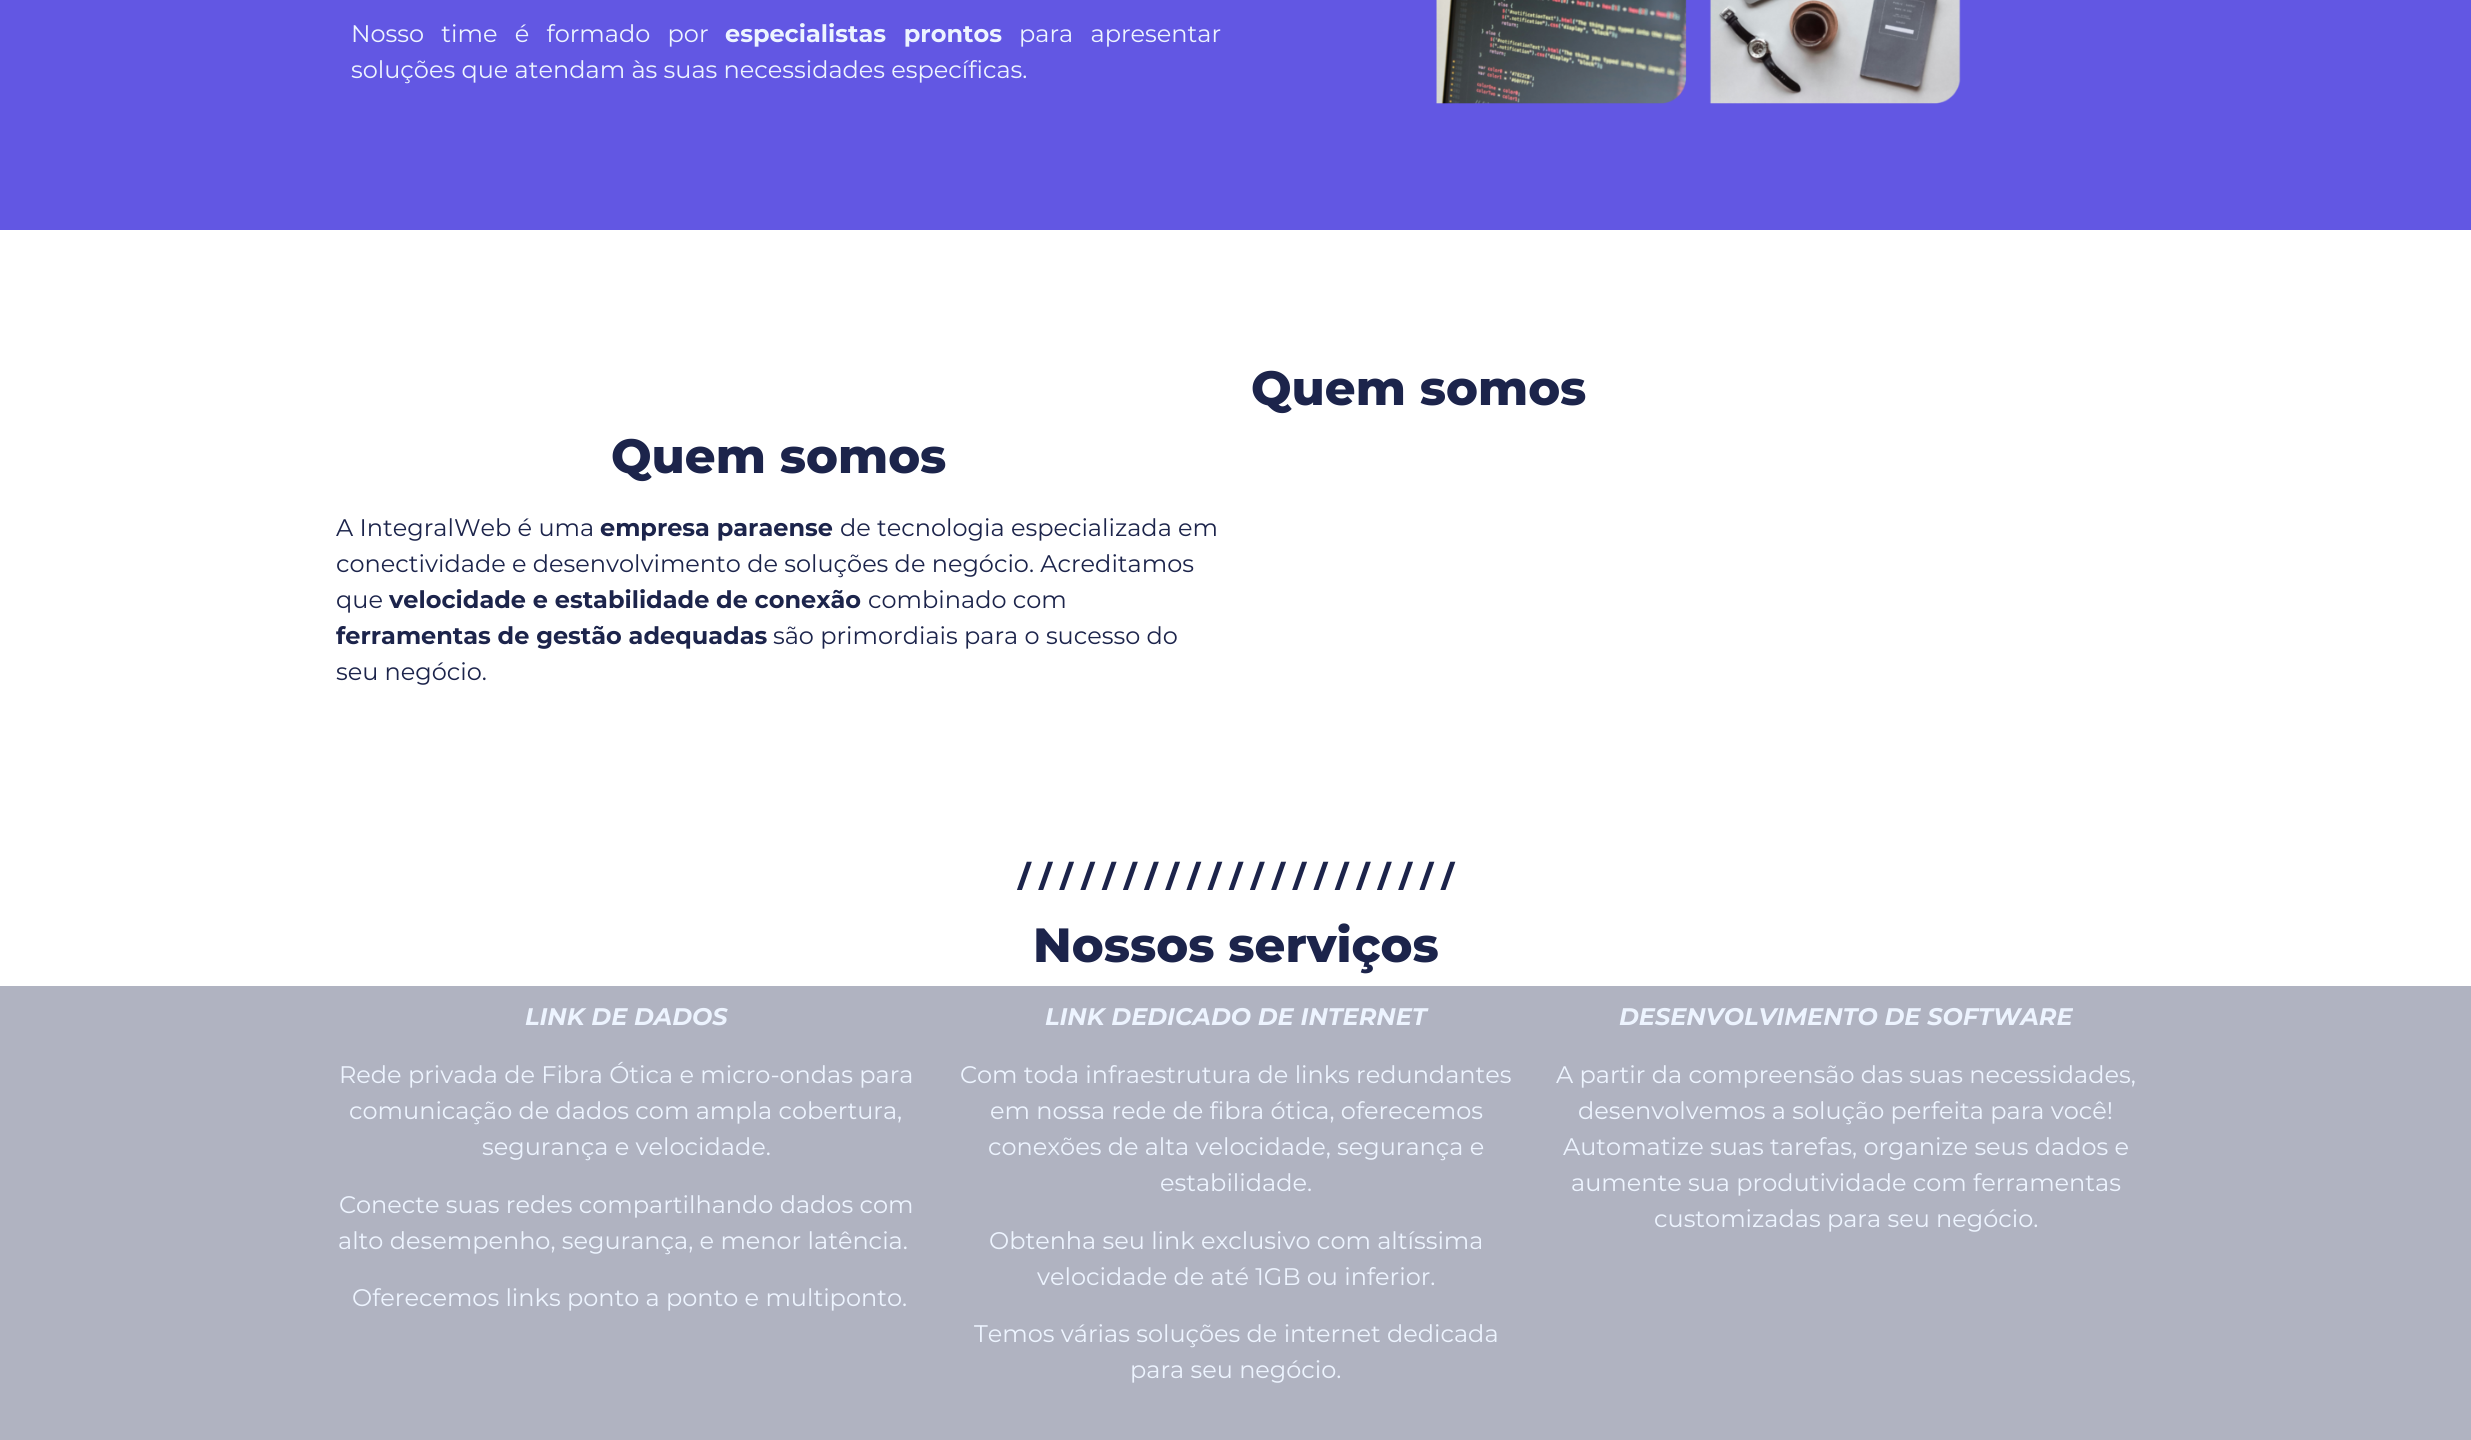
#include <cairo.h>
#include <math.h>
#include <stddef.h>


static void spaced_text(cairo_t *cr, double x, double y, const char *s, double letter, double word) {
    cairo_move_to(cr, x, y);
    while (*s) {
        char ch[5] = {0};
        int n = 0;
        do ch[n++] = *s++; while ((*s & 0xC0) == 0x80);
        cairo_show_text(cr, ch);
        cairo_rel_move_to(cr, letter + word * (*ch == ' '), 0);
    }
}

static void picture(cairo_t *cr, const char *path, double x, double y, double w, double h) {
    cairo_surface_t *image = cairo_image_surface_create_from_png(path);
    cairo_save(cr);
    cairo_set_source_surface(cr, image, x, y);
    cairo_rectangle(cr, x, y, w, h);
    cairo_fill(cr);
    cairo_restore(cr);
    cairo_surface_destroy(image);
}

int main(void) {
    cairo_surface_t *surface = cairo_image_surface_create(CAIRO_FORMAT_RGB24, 2471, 1440);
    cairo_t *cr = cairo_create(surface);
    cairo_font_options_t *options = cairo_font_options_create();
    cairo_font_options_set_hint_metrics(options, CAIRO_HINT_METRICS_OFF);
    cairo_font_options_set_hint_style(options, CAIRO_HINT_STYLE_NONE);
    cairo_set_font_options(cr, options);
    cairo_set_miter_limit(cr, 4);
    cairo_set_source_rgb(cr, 1, 1, 1);
    cairo_paint(cr);
    cairo_set_source_rgb(cr, 0.384, 0.341, 0.89);
    cairo_rectangle(cr, 0, 0, 2471, 230);
    cairo_fill(cr);
    cairo_select_font_face(cr, "Montserrat", CAIRO_FONT_SLANT_NORMAL, CAIRO_FONT_WEIGHT_NORMAL);
    cairo_set_font_size(cr, 24);
    cairo_set_source_rgb(cr, 0.929, 0.957, 1);
    spaced_text(cr, 351, 42, "Nosso time é formado por", 0, 11);
    cairo_select_font_face(cr, "Montserrat", CAIRO_FONT_SLANT_NORMAL, CAIRO_FONT_WEIGHT_BOLD);
    spaced_text(cr, 725, 42, "especialistas prontos", 0, 11);
    cairo_select_font_face(cr, "Montserrat", CAIRO_FONT_SLANT_NORMAL, CAIRO_FONT_WEIGHT_NORMAL);
    spaced_text(cr, 1019, 42, "para apresentar", 0, 11);
    cairo_move_to(cr, 351, 78);
    cairo_show_text(cr, "soluções que atendam às suas necessidades específicas.");
    picture(cr, "img1.png", 1436, 0, 525, 104);
    cairo_select_font_face(cr, "Montserrat ExtraBold", CAIRO_FONT_SLANT_NORMAL, CAIRO_FONT_WEIGHT_NORMAL);
    cairo_set_font_size(cr, 48);
    cairo_set_source_rgb(cr, 0.11, 0.141, 0.294);
    cairo_move_to(cr, 1251, 405);
    cairo_show_text(cr, "Quem somos");
    cairo_move_to(cr, 611, 473);
    cairo_show_text(cr, "Quem somos");
    cairo_select_font_face(cr, "Montserrat", CAIRO_FONT_SLANT_NORMAL, CAIRO_FONT_WEIGHT_NORMAL);
    cairo_set_font_size(cr, 24);
    cairo_move_to(cr, 336, 536);
    cairo_show_text(cr, "A IntegralWeb é uma");
    cairo_select_font_face(cr, "Montserrat", CAIRO_FONT_SLANT_NORMAL, CAIRO_FONT_WEIGHT_BOLD);
    cairo_move_to(cr, 600, 536);
    cairo_show_text(cr, "empresa paraense");
    cairo_select_font_face(cr, "Montserrat", CAIRO_FONT_SLANT_NORMAL, CAIRO_FONT_WEIGHT_NORMAL);
    cairo_move_to(cr, 840, 536);
    cairo_show_text(cr, "de tecnologia especializada em");
    cairo_move_to(cr, 336, 572);
    cairo_show_text(cr, "conectividade e desenvolvimento de soluções de negócio. Acreditamos");
    cairo_move_to(cr, 336, 608);
    cairo_show_text(cr, "que");
    cairo_select_font_face(cr, "Montserrat", CAIRO_FONT_SLANT_NORMAL, CAIRO_FONT_WEIGHT_BOLD);
    cairo_move_to(cr, 389, 608);
    cairo_show_text(cr, "velocidade e estabilidade de conexão");
    cairo_select_font_face(cr, "Montserrat", CAIRO_FONT_SLANT_NORMAL, CAIRO_FONT_WEIGHT_NORMAL);
    cairo_move_to(cr, 868, 608);
    cairo_show_text(cr, "combinado com");
    cairo_select_font_face(cr, "Montserrat", CAIRO_FONT_SLANT_NORMAL, CAIRO_FONT_WEIGHT_BOLD);
    cairo_move_to(cr, 336, 644);
    cairo_show_text(cr, "ferramentas de gestão adequadas");
    cairo_select_font_face(cr, "Montserrat", CAIRO_FONT_SLANT_NORMAL, CAIRO_FONT_WEIGHT_NORMAL);
    cairo_move_to(cr, 773, 644);
    cairo_show_text(cr, "são primordiais para o sucesso do");
    cairo_move_to(cr, 336, 680);
    cairo_show_text(cr, "seu negócio.");
    cairo_select_font_face(cr, "Montserrat ExtraBold", CAIRO_FONT_SLANT_NORMAL, CAIRO_FONT_WEIGHT_NORMAL);
    cairo_set_font_size(cr, 30);
    cairo_move_to(cr, 1018, 887);
    cairo_show_text(cr, "/ / / / / / / / / / / / / / / / / / / / /");
    cairo_set_font_size(cr, 48);
    cairo_move_to(cr, 1033, 962);
    cairo_show_text(cr, "Nossos serviços");
    cairo_set_source_rgb(cr, 0.69, 0.702, 0.757);
    cairo_rectangle(cr, 0, 986, 2471, 454);
    cairo_fill(cr);
    cairo_select_font_face(cr, "Montserrat", CAIRO_FONT_SLANT_ITALIC, CAIRO_FONT_WEIGHT_BOLD);
    cairo_set_font_size(cr, 24);
    cairo_set_source_rgb(cr, 0.929, 0.957, 1);
    cairo_move_to(cr, 525, 1025);
    cairo_show_text(cr, "LINK DE DADOS");
    cairo_select_font_face(cr, "Montserrat", CAIRO_FONT_SLANT_NORMAL, CAIRO_FONT_WEIGHT_NORMAL);
    cairo_move_to(cr, 339, 1083);
    cairo_show_text(cr, "Rede privada de Fibra Ótica e micro-ondas para");
    cairo_move_to(cr, 349, 1119);
    cairo_show_text(cr, "comunicação de dados com ampla cobertura,");
    cairo_move_to(cr, 482, 1155);
    cairo_show_text(cr, "segurança e velocidade.");
    cairo_move_to(cr, 339, 1213);
    cairo_show_text(cr, "Conecte suas redes compartilhando dados com");
    cairo_move_to(cr, 338, 1249);
    cairo_show_text(cr, "alto desempenho, segurança, e menor latência.");
    cairo_move_to(cr, 352, 1306);
    cairo_show_text(cr, "Oferecemos links ponto a ponto e multiponto.");
    cairo_select_font_face(cr, "Montserrat", CAIRO_FONT_SLANT_ITALIC, CAIRO_FONT_WEIGHT_BOLD);
    cairo_move_to(cr, 1045, 1025);
    cairo_show_text(cr, "LINK DEDICADO DE INTERNET");
    cairo_select_font_face(cr, "Montserrat", CAIRO_FONT_SLANT_NORMAL, CAIRO_FONT_WEIGHT_NORMAL);
    cairo_move_to(cr, 960, 1083);
    cairo_show_text(cr, "Com toda infraestrutura de links redundantes");
    cairo_move_to(cr, 990, 1119);
    cairo_show_text(cr, "em nossa rede de fibra ótica, oferecemos");
    cairo_move_to(cr, 988, 1155);
    cairo_show_text(cr, "conexões de alta velocidade, segurança e");
    cairo_move_to(cr, 1160, 1191);
    cairo_show_text(cr, "estabilidade.");
    cairo_move_to(cr, 989, 1249);
    cairo_show_text(cr, "Obtenha seu link exclusivo com altíssima");
    cairo_move_to(cr, 1037, 1285);
    cairo_show_text(cr, "velocidade de até 1GB ou inferior.");
    cairo_move_to(cr, 974, 1342);
    cairo_show_text(cr, "Temos várias soluções de internet dedicada");
    cairo_move_to(cr, 1130, 1378);
    cairo_show_text(cr, "para seu negócio.");
    cairo_select_font_face(cr, "Montserrat", CAIRO_FONT_SLANT_ITALIC, CAIRO_FONT_WEIGHT_BOLD);
    cairo_move_to(cr, 1619, 1025);
    cairo_show_text(cr, "DESENVOLVIMENTO DE SOFTWARE");
    cairo_select_font_face(cr, "Montserrat", CAIRO_FONT_SLANT_NORMAL, CAIRO_FONT_WEIGHT_NORMAL);
    cairo_move_to(cr, 1556, 1083);
    cairo_show_text(cr, "A partir da compreensão das suas necessidades,");
    cairo_move_to(cr, 1578, 1119);
    cairo_show_text(cr, "desenvolvemos a solução perfeita para você!");
    cairo_move_to(cr, 1563, 1155);
    cairo_show_text(cr, "Automatize suas tarefas, organize seus dados e");
    cairo_move_to(cr, 1571, 1191);
    cairo_show_text(cr, "aumente sua produtividade com ferramentas");
    cairo_move_to(cr, 1654, 1227);
    cairo_show_text(cr, "customizadas para seu negócio.");
    cairo_surface_write_to_png(surface, "page.png");
    cairo_font_options_destroy(options);
    cairo_destroy(cr);
    cairo_surface_destroy(surface);
    return 0;
}
